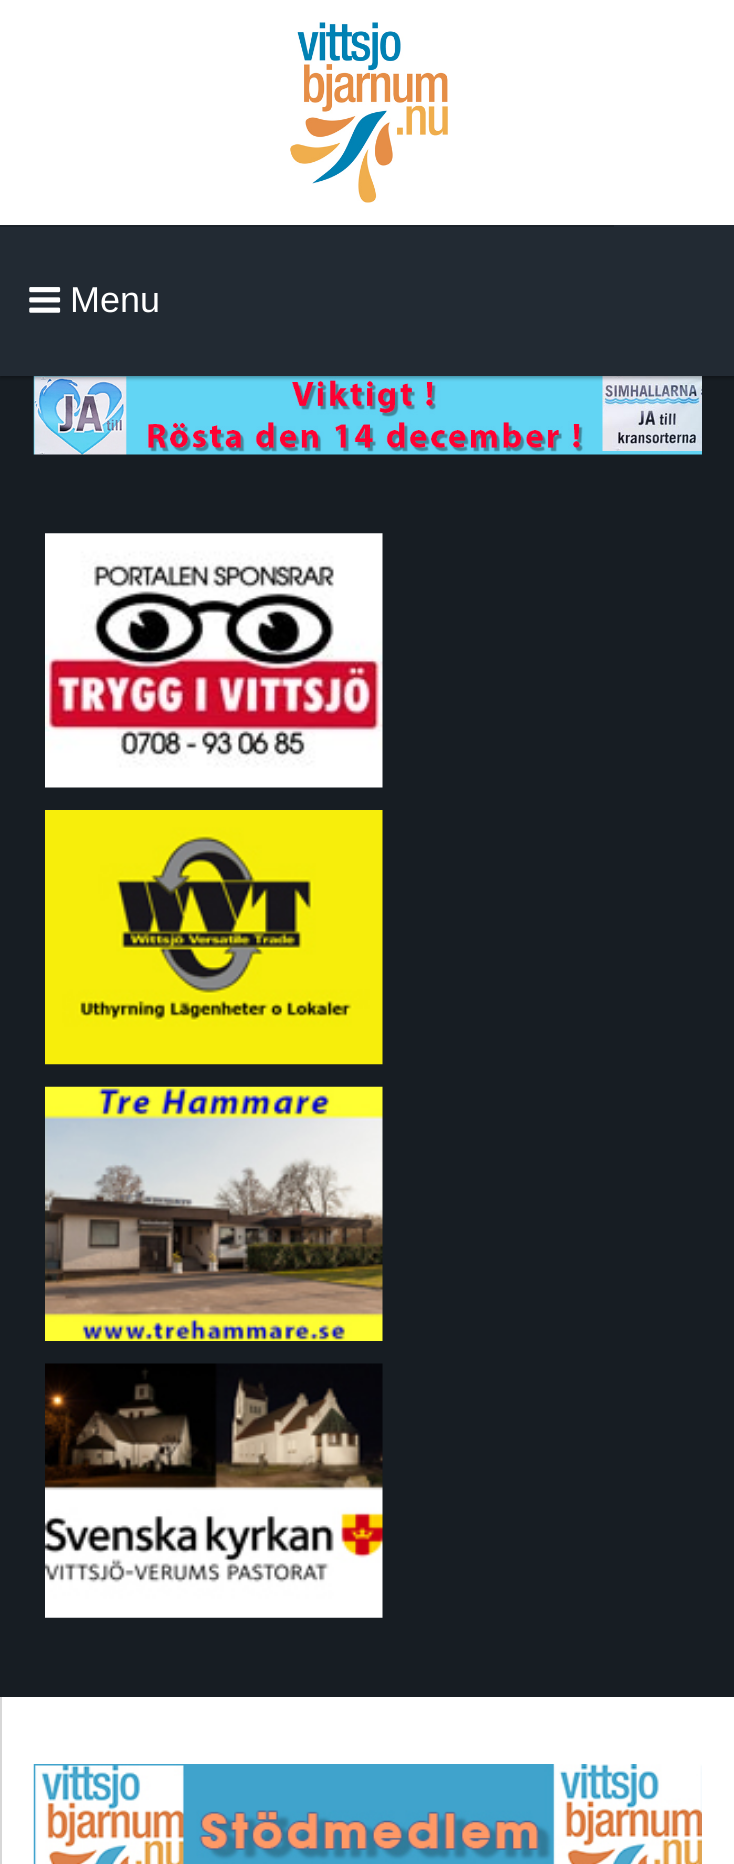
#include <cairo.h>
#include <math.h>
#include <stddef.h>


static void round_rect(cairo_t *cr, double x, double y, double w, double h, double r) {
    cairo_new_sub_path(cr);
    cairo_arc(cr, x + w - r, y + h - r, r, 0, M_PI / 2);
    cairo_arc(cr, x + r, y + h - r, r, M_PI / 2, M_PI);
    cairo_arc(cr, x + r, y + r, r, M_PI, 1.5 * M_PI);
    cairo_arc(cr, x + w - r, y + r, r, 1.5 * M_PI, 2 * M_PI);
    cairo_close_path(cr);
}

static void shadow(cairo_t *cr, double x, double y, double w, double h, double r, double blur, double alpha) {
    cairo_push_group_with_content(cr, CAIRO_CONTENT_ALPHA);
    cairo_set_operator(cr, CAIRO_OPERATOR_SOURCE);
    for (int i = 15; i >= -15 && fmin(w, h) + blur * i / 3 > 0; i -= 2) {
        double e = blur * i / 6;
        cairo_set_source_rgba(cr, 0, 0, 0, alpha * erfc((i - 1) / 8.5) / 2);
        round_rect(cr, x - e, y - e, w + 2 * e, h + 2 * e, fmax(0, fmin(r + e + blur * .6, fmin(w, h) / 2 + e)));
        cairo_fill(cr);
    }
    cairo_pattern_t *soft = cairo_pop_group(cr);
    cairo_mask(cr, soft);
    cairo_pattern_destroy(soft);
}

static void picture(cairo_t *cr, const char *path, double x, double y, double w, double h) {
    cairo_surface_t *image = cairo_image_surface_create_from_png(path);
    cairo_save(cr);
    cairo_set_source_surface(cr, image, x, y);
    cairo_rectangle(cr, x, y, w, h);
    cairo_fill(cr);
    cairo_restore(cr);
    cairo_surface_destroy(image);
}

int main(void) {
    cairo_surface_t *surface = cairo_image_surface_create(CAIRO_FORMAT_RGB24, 734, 1864);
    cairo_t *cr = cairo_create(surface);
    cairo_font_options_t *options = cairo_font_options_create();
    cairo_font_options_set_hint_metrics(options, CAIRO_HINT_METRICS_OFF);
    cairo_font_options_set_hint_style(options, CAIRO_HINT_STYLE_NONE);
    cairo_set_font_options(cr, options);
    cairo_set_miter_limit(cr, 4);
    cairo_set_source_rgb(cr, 1, 1, 1);
    cairo_paint(cr);
    cairo_set_source_rgb(cr, 0.09, 0.114, 0.137);
    cairo_rectangle(cr, 0, 376, 734, 1321);
    cairo_fill(cr);
    picture(cr, "img3.png", 33, 376, 669, 79);
    cairo_set_source_rgb(cr, 0, 0, 0);
    shadow(cr, 0, 2, 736, 376, 0, 2, 0.34);
    cairo_set_source_rgb(cr, 0.133, 0.165, 0.2);
    cairo_rectangle(cr, 0, 225, 734, 151);
    cairo_fill(cr);
    cairo_set_source_rgb(cr, 1, 1, 1);
    cairo_rectangle(cr, 0, 0, 734, 225);
    cairo_fill(cr);
    picture(cr, "img1.png", 290, 22, 158, 181);
    cairo_set_source_rgb(cr, 0.106, 0.133, 0.161);
    cairo_rectangle(cr, 0, 225, 614, 2);
    cairo_fill(cr);
    picture(cr, "img2.png", 29, 287, 32, 26);
    cairo_select_font_face(cr, "Liberation Sans", CAIRO_FONT_SLANT_NORMAL, CAIRO_FONT_WEIGHT_NORMAL);
    cairo_set_font_size(cr, 36);
    cairo_set_source_rgb(cr, 1, 1, 1);
    cairo_move_to(cr, 70, 312);
    cairo_show_text(cr, "Menu");
    picture(cr, "img4.png", 45, 533, 338, 255);
    picture(cr, "img5.png", 45, 810, 338, 255);
    picture(cr, "img6.png", 45, 1086, 338, 255);
    picture(cr, "img7.png", 45, 1363, 338, 255);
    cairo_set_source_rgb(cr, 0.843, 0.843, 0.843);
    cairo_rectangle(cr, 0, 1697, 2, 167);
    cairo_fill(cr);
    picture(cr, "img8.png", 33, 1764, 669, 100);
    cairo_surface_write_to_png(surface, "page.png");
    cairo_font_options_destroy(options);
    cairo_destroy(cr);
    cairo_surface_destroy(surface);
    return 0;
}
